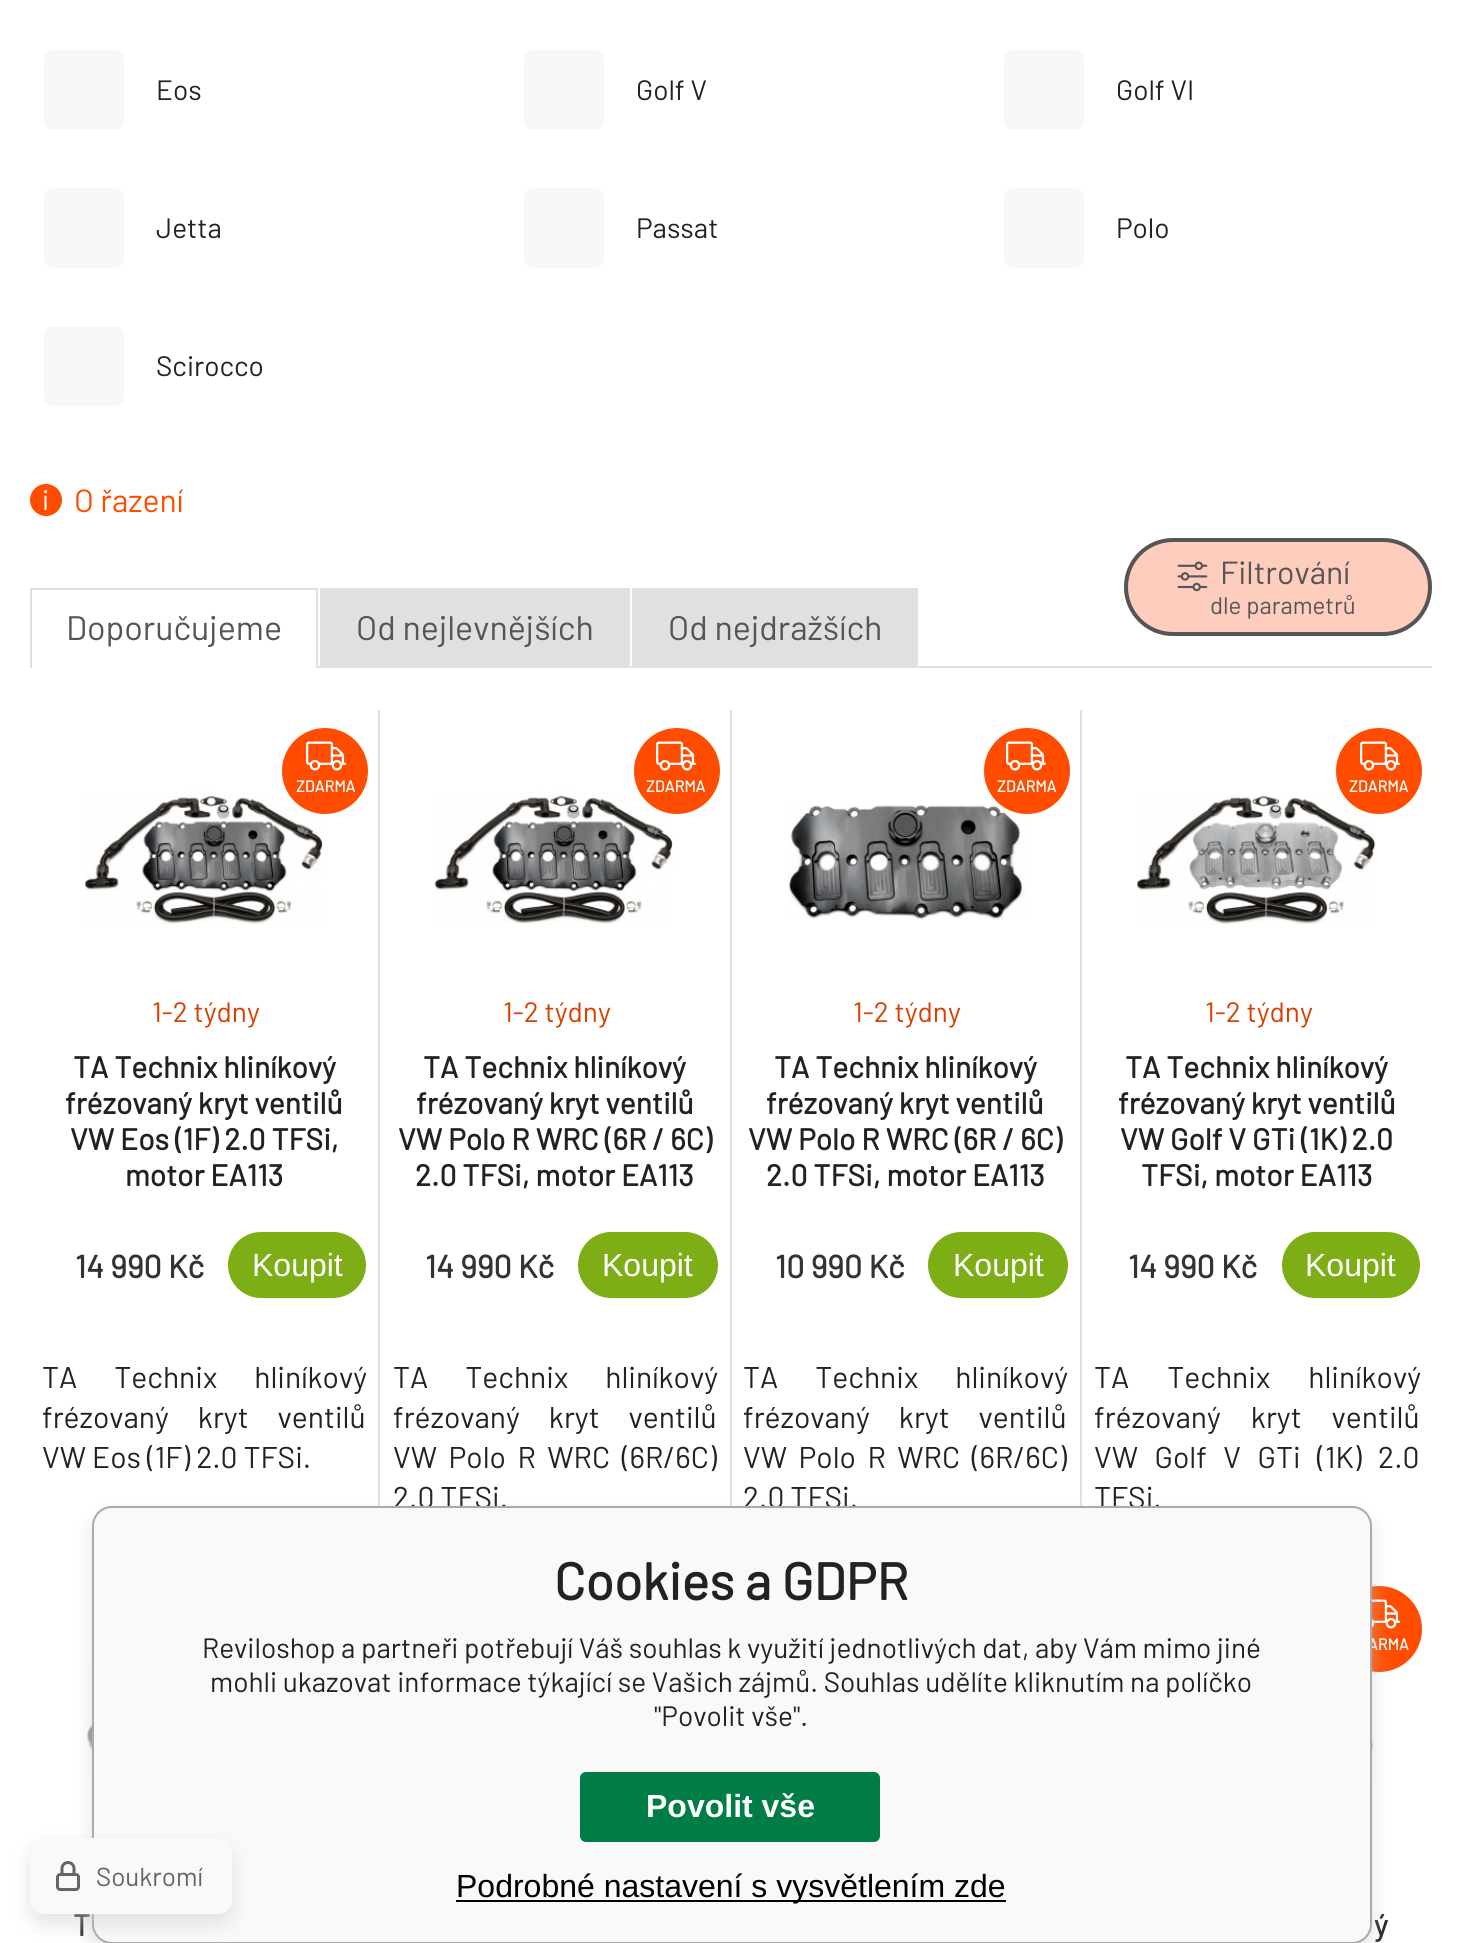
#include <cairo.h>
#include <math.h>
#include <stddef.h>


static void spaced_text(cairo_t *cr, double x, double y, const char *s, double letter, double word) {
    cairo_move_to(cr, x, y);
    while (*s) {
        char ch[5] = {0};
        int n = 0;
        do ch[n++] = *s++; while ((*s & 0xC0) == 0x80);
        cairo_show_text(cr, ch);
        cairo_rel_move_to(cr, letter + word * (*ch == ' '), 0);
    }
}

static void round_rect(cairo_t *cr, double x, double y, double w, double h, double r) {
    cairo_new_sub_path(cr);
    cairo_arc(cr, x + w - r, y + h - r, r, 0, M_PI / 2);
    cairo_arc(cr, x + r, y + h - r, r, M_PI / 2, M_PI);
    cairo_arc(cr, x + r, y + r, r, M_PI, 1.5 * M_PI);
    cairo_arc(cr, x + w - r, y + r, r, 1.5 * M_PI, 2 * M_PI);
    cairo_close_path(cr);
}

static void shadow(cairo_t *cr, double x, double y, double w, double h, double r, double blur, double alpha) {
    cairo_push_group_with_content(cr, CAIRO_CONTENT_ALPHA);
    cairo_set_operator(cr, CAIRO_OPERATOR_SOURCE);
    for (int i = 15; i >= -15 && fmin(w, h) + blur * i / 3 > 0; i -= 2) {
        double e = blur * i / 6;
        cairo_set_source_rgba(cr, 0, 0, 0, alpha * erfc((i - 1) / 8.5) / 2);
        round_rect(cr, x - e, y - e, w + 2 * e, h + 2 * e, fmax(0, fmin(r + e + blur * .6, fmin(w, h) / 2 + e)));
        cairo_fill(cr);
    }
    cairo_pattern_t *soft = cairo_pop_group(cr);
    cairo_mask(cr, soft);
    cairo_pattern_destroy(soft);
}

static void picture(cairo_t *cr, const char *path, double x, double y, double w, double h) {
    cairo_surface_t *image = cairo_image_surface_create_from_png(path);
    cairo_save(cr);
    cairo_set_source_surface(cr, image, x, y);
    cairo_rectangle(cr, x, y, w, h);
    cairo_fill(cr);
    cairo_restore(cr);
    cairo_surface_destroy(image);
}

int main(void) {
    cairo_surface_t *surface = cairo_image_surface_create(CAIRO_FORMAT_RGB24, 1461, 1943);
    cairo_t *cr = cairo_create(surface);
    cairo_font_options_t *options = cairo_font_options_create();
    cairo_font_options_set_hint_metrics(options, CAIRO_HINT_METRICS_OFF);
    cairo_font_options_set_hint_style(options, CAIRO_HINT_STYLE_NONE);
    cairo_set_font_options(cr, options);
    cairo_set_miter_limit(cr, 4);
    cairo_set_source_rgb(cr, 1, 1, 1);
    cairo_paint(cr);
    cairo_set_source_rgb(cr, 0.969, 0.969, 0.969);
    round_rect(cr, 44, 50, 80, 80, 10);
    cairo_fill(cr);
    cairo_select_font_face(cr, "Barlow", CAIRO_FONT_SLANT_NORMAL, CAIRO_FONT_WEIGHT_NORMAL);
    cairo_set_font_size(cr, 28);
    cairo_set_source_rgb(cr, 0.133, 0.133, 0.133);
    cairo_move_to(cr, 156, 100);
    cairo_show_text(cr, "Eos");
    cairo_set_source_rgb(cr, 0.969, 0.969, 0.969);
    round_rect(cr, 524, 50, 80, 80, 10);
    cairo_fill(cr);
    cairo_set_source_rgb(cr, 0.133, 0.133, 0.133);
    cairo_move_to(cr, 636, 100);
    cairo_show_text(cr, "Golf V");
    cairo_set_source_rgb(cr, 0.969, 0.969, 0.969);
    round_rect(cr, 1004, 50, 80, 80, 10);
    cairo_fill(cr);
    cairo_set_source_rgb(cr, 0.133, 0.133, 0.133);
    cairo_move_to(cr, 1116, 100);
    cairo_show_text(cr, "Golf VI");
    cairo_set_source_rgb(cr, 0.969, 0.969, 0.969);
    round_rect(cr, 44, 188, 80, 80, 10);
    cairo_fill(cr);
    cairo_set_source_rgb(cr, 0.133, 0.133, 0.133);
    cairo_move_to(cr, 156, 238);
    cairo_show_text(cr, "Jetta");
    cairo_set_source_rgb(cr, 0.969, 0.969, 0.969);
    round_rect(cr, 524, 188, 80, 80, 10);
    cairo_fill(cr);
    cairo_set_source_rgb(cr, 0.133, 0.133, 0.133);
    cairo_move_to(cr, 636, 238);
    cairo_show_text(cr, "Passat");
    cairo_set_source_rgb(cr, 0.969, 0.969, 0.969);
    round_rect(cr, 1004, 188, 80, 80, 10);
    cairo_fill(cr);
    cairo_set_source_rgb(cr, 0.133, 0.133, 0.133);
    cairo_move_to(cr, 1116, 238);
    cairo_show_text(cr, "Polo");
    cairo_set_source_rgb(cr, 0.969, 0.969, 0.969);
    round_rect(cr, 44, 326, 80, 80, 10);
    cairo_fill(cr);
    cairo_set_source_rgb(cr, 0.133, 0.133, 0.133);
    cairo_move_to(cr, 156, 376);
    cairo_show_text(cr, "Scirocco");
    cairo_set_source_rgb(cr, 0.878, 0.878, 0.878);
    cairo_rectangle(cr, 30, 666, 1402, 2);
    cairo_fill(cr);
    cairo_set_source_rgb(cr, 1, 0.298, 0);
    cairo_arc(cr, 46, 500, 16, 0, 2 * M_PI);
    cairo_fill(cr);
    cairo_set_source_rgb(cr, 1, 1, 1);
    cairo_move_to(cr, 42, 510);
    cairo_show_text(cr, "i");
    cairo_set_font_size(cr, 32);
    cairo_set_source_rgb(cr, 1, 0.298, 0);
    cairo_move_to(cr, 74, 512);
    cairo_show_text(cr, "O řazení");
    cairo_set_source_rgb(cr, 1, 0.804, 0.741);
    round_rect(cr, 1124, 538, 308, 98, 49);
    cairo_fill(cr);
    picture(cr, "img1.png", 1177, 561, 31, 31);
    round_rect(cr, 1126, 540, 304, 94, 47);
    cairo_set_source_rgb(cr, 0.333, 0.333, 0.333);
    cairo_set_line_width(cr, 4);
    cairo_stroke(cr);
    cairo_move_to(cr, 1220, 584);
    cairo_show_text(cr, "Filtrování");
    cairo_set_font_size(cr, 24);
    cairo_move_to(cr, 1210, 614);
    cairo_show_text(cr, "dle parametrů");
    cairo_set_source_rgb(cr, 0.878, 0.878, 0.878);
    cairo_rectangle(cr, 30, 588, 288, 2);
    cairo_fill(cr);
    cairo_rectangle(cr, 316, 588, 2, 78);
    cairo_fill(cr);
    cairo_rectangle(cr, 30, 588, 2, 78);
    cairo_fill(cr);
    cairo_set_font_size(cr, 34);
    cairo_set_source_rgb(cr, 0.333, 0.333, 0.333);
    cairo_move_to(cr, 66, 640);
    cairo_show_text(cr, "Doporučujeme");
    cairo_set_source_rgb(cr, 1, 1, 1);
    cairo_rectangle(cr, 32, 666, 284, 2);
    cairo_fill(cr);
    cairo_set_source_rgb(cr, 0.878, 0.878, 0.878);
    cairo_rectangle(cr, 320, 588, 310, 78);
    cairo_fill(cr);
    cairo_set_source_rgb(cr, 0.333, 0.333, 0.333);
    cairo_move_to(cr, 356, 640);
    cairo_show_text(cr, "Od nejlevnějších");
    cairo_set_source_rgb(cr, 0.878, 0.878, 0.878);
    cairo_rectangle(cr, 632, 588, 286, 78);
    cairo_fill(cr);
    cairo_set_source_rgb(cr, 0.333, 0.333, 0.333);
    cairo_move_to(cr, 668, 640);
    cairo_show_text(cr, "Od nejdražších");
    cairo_set_source_rgb(cr, 0.878, 0.878, 0.878);
    cairo_rectangle(cr, 378, 710, 2, 796);
    cairo_fill(cr);
    picture(cr, "img3.png", 84, 791, 239, 133);
    cairo_set_source_rgb(cr, 1, 0.298, 0);
    cairo_arc(cr, 325, 771, 43, 0, 2 * M_PI);
    cairo_fill(cr);
    picture(cr, "img2.png", 306, 741, 40, 30);
    cairo_select_font_face(cr, "Barlow", CAIRO_FONT_SLANT_NORMAL, CAIRO_FONT_WEIGHT_BOLD);
    cairo_set_font_size(cr, 16);
    cairo_set_source_rgb(cr, 1, 1, 1);
    cairo_move_to(cr, 296, 792);
    cairo_show_text(cr, "ZDARMA");
    cairo_select_font_face(cr, "Barlow", CAIRO_FONT_SLANT_NORMAL, CAIRO_FONT_WEIGHT_NORMAL);
    cairo_set_font_size(cr, 28);
    cairo_set_source_rgb(cr, 0.843, 0.251, 0);
    cairo_move_to(cr, 152, 1022);
    cairo_show_text(cr, "1-2 týdny");
    cairo_select_font_face(cr, "Barlow", CAIRO_FONT_SLANT_NORMAL, CAIRO_FONT_WEIGHT_BOLD);
    cairo_set_font_size(cr, 32);
    cairo_set_source_rgb(cr, 0.2, 0.2, 0.2);
    cairo_move_to(cr, 75, 1278);
    cairo_show_text(cr, "14 990 Kč");
    cairo_set_source_rgb(cr, 0.494, 0.682, 0.086);
    round_rect(cr, 228, 1232, 138, 66, 33);
    cairo_fill(cr);
    cairo_select_font_face(cr, "Liberation Sans", CAIRO_FONT_SLANT_NORMAL, CAIRO_FONT_WEIGHT_NORMAL);
    cairo_set_source_rgb(cr, 1, 1, 1);
    cairo_move_to(cr, 252, 1276);
    cairo_show_text(cr, "Koupit");
    cairo_select_font_face(cr, "Barlow", CAIRO_FONT_SLANT_NORMAL, CAIRO_FONT_WEIGHT_BOLD);
    cairo_set_font_size(cr, 30);
    cairo_set_source_rgb(cr, 0.133, 0.133, 0.133);
    cairo_move_to(cr, 73, 1078);
    cairo_show_text(cr, "TA Technix hliníkový");
    cairo_move_to(cr, 65, 1114);
    cairo_show_text(cr, "frézovaný kryt ventilů");
    cairo_move_to(cr, 70, 1150);
    cairo_show_text(cr, "VW Eos (1F) 2.0 TFSi,");
    cairo_move_to(cr, 125, 1186);
    cairo_show_text(cr, "motor EA113");
    cairo_select_font_face(cr, "Barlow", CAIRO_FONT_SLANT_NORMAL, CAIRO_FONT_WEIGHT_NORMAL);
    spaced_text(cr, 42, 1388, "TA Technix hliníkový", 0, 31);
    spaced_text(cr, 42, 1428, "frézovaný kryt ventilů", 0, 23);
    cairo_move_to(cr, 42, 1468);
    cairo_show_text(cr, "VW Eos (1F) 2.0 TFSi.");
    cairo_set_source_rgb(cr, 0.878, 0.878, 0.878);
    cairo_rectangle(cr, 730, 710, 2, 796);
    cairo_fill(cr);
    picture(cr, "img4.png", 434, 791, 239, 133);
    cairo_set_source_rgb(cr, 1, 0.298, 0);
    cairo_arc(cr, 677, 771, 43, 0, 2 * M_PI);
    cairo_fill(cr);
    picture(cr, "img2.png", 656, 741, 40, 30);
    cairo_select_font_face(cr, "Barlow", CAIRO_FONT_SLANT_NORMAL, CAIRO_FONT_WEIGHT_BOLD);
    cairo_set_font_size(cr, 16);
    cairo_set_source_rgb(cr, 1, 1, 1);
    cairo_move_to(cr, 646, 792);
    cairo_show_text(cr, "ZDARMA");
    cairo_select_font_face(cr, "Barlow", CAIRO_FONT_SLANT_NORMAL, CAIRO_FONT_WEIGHT_NORMAL);
    cairo_set_font_size(cr, 28);
    cairo_set_source_rgb(cr, 0.843, 0.251, 0);
    cairo_move_to(cr, 503, 1022);
    cairo_show_text(cr, "1-2 týdny");
    cairo_select_font_face(cr, "Barlow", CAIRO_FONT_SLANT_NORMAL, CAIRO_FONT_WEIGHT_BOLD);
    cairo_set_font_size(cr, 32);
    cairo_set_source_rgb(cr, 0.2, 0.2, 0.2);
    cairo_move_to(cr, 425, 1278);
    cairo_show_text(cr, "14 990 Kč");
    cairo_set_source_rgb(cr, 0.494, 0.682, 0.086);
    round_rect(cr, 578, 1232, 140, 66, 33);
    cairo_fill(cr);
    cairo_select_font_face(cr, "Liberation Sans", CAIRO_FONT_SLANT_NORMAL, CAIRO_FONT_WEIGHT_NORMAL);
    cairo_set_source_rgb(cr, 1, 1, 1);
    cairo_move_to(cr, 602, 1276);
    cairo_show_text(cr, "Koupit");
    cairo_select_font_face(cr, "Barlow", CAIRO_FONT_SLANT_NORMAL, CAIRO_FONT_WEIGHT_BOLD);
    cairo_set_font_size(cr, 30);
    cairo_set_source_rgb(cr, 0.133, 0.133, 0.133);
    cairo_move_to(cr, 423, 1078);
    cairo_show_text(cr, "TA Technix hliníkový");
    cairo_move_to(cr, 416, 1114);
    cairo_show_text(cr, "frézovaný kryt ventilů");
    cairo_move_to(cr, 398, 1150);
    cairo_show_text(cr, "VW Polo R WRC (6R / 6C)");
    cairo_move_to(cr, 415, 1186);
    cairo_show_text(cr, "2.0 TFSi, motor EA113");
    cairo_select_font_face(cr, "Barlow", CAIRO_FONT_SLANT_NORMAL, CAIRO_FONT_WEIGHT_NORMAL);
    spaced_text(cr, 393, 1388, "TA Technix hliníkový", 0, 31);
    spaced_text(cr, 393, 1428, "frézovaný kryt ventilů", 0, 23);
    spaced_text(cr, 393, 1468, "VW Polo R WRC (6R/6C)", 0, 5.5);
    cairo_move_to(cr, 393, 1508);
    cairo_show_text(cr, "2.0 TFSi.");
    cairo_set_source_rgb(cr, 0.878, 0.878, 0.878);
    cairo_rectangle(cr, 1080, 710, 2, 796);
    cairo_fill(cr);
    picture(cr, "img5.png", 787, 804, 239, 116);
    cairo_set_source_rgb(cr, 1, 0.298, 0);
    cairo_arc(cr, 1027, 771, 43, 0, 2 * M_PI);
    cairo_fill(cr);
    picture(cr, "img2.png", 1006, 741, 40, 30);
    cairo_select_font_face(cr, "Barlow", CAIRO_FONT_SLANT_NORMAL, CAIRO_FONT_WEIGHT_BOLD);
    cairo_set_font_size(cr, 16);
    cairo_set_source_rgb(cr, 1, 1, 1);
    cairo_move_to(cr, 997, 792);
    cairo_show_text(cr, "ZDARMA");
    cairo_select_font_face(cr, "Barlow", CAIRO_FONT_SLANT_NORMAL, CAIRO_FONT_WEIGHT_NORMAL);
    cairo_set_font_size(cr, 28);
    cairo_set_source_rgb(cr, 0.843, 0.251, 0);
    cairo_move_to(cr, 853, 1022);
    cairo_show_text(cr, "1-2 týdny");
    cairo_select_font_face(cr, "Barlow", CAIRO_FONT_SLANT_NORMAL, CAIRO_FONT_WEIGHT_BOLD);
    cairo_set_font_size(cr, 32);
    cairo_set_source_rgb(cr, 0.2, 0.2, 0.2);
    cairo_move_to(cr, 775, 1278);
    cairo_show_text(cr, "10 990 Kč");
    cairo_set_source_rgb(cr, 0.494, 0.682, 0.086);
    round_rect(cr, 928, 1232, 140, 66, 33);
    cairo_fill(cr);
    cairo_select_font_face(cr, "Liberation Sans", CAIRO_FONT_SLANT_NORMAL, CAIRO_FONT_WEIGHT_NORMAL);
    cairo_set_source_rgb(cr, 1, 1, 1);
    cairo_move_to(cr, 953, 1276);
    cairo_show_text(cr, "Koupit");
    cairo_select_font_face(cr, "Barlow", CAIRO_FONT_SLANT_NORMAL, CAIRO_FONT_WEIGHT_BOLD);
    cairo_set_font_size(cr, 30);
    cairo_set_source_rgb(cr, 0.133, 0.133, 0.133);
    cairo_move_to(cr, 774, 1078);
    cairo_show_text(cr, "TA Technix hliníkový");
    cairo_move_to(cr, 766, 1114);
    cairo_show_text(cr, "frézovaný kryt ventilů");
    cairo_move_to(cr, 748, 1150);
    cairo_show_text(cr, "VW Polo R WRC (6R / 6C)");
    cairo_move_to(cr, 766, 1186);
    cairo_show_text(cr, "2.0 TFSi, motor EA113");
    cairo_select_font_face(cr, "Barlow", CAIRO_FONT_SLANT_NORMAL, CAIRO_FONT_WEIGHT_NORMAL);
    spaced_text(cr, 743, 1388, "TA Technix hliníkový", 0, 31);
    spaced_text(cr, 743, 1428, "frézovaný kryt ventilů", 0, 23);
    spaced_text(cr, 743, 1468, "VW Polo R WRC (6R/6C)", 0, 5.5);
    cairo_move_to(cr, 743, 1508);
    cairo_show_text(cr, "2.0 TFSi.");
    picture(cr, "img6.png", 1136, 795, 240, 130);
    cairo_set_source_rgb(cr, 1, 0.298, 0);
    cairo_arc(cr, 1379, 771, 43, 0, 2 * M_PI);
    cairo_fill(cr);
    picture(cr, "img2.png", 1360, 741, 40, 30);
    cairo_select_font_face(cr, "Barlow", CAIRO_FONT_SLANT_NORMAL, CAIRO_FONT_WEIGHT_BOLD);
    cairo_set_font_size(cr, 16);
    cairo_set_source_rgb(cr, 1, 1, 1);
    cairo_move_to(cr, 1349, 792);
    cairo_show_text(cr, "ZDARMA");
    cairo_select_font_face(cr, "Barlow", CAIRO_FONT_SLANT_NORMAL, CAIRO_FONT_WEIGHT_NORMAL);
    cairo_set_font_size(cr, 28);
    cairo_set_source_rgb(cr, 0.843, 0.251, 0);
    cairo_move_to(cr, 1205, 1022);
    cairo_show_text(cr, "1-2 týdny");
    cairo_select_font_face(cr, "Barlow", CAIRO_FONT_SLANT_NORMAL, CAIRO_FONT_WEIGHT_BOLD);
    cairo_set_font_size(cr, 32);
    cairo_set_source_rgb(cr, 0.2, 0.2, 0.2);
    cairo_move_to(cr, 1128, 1278);
    cairo_show_text(cr, "14 990 Kč");
    cairo_set_source_rgb(cr, 0.494, 0.682, 0.086);
    round_rect(cr, 1282, 1232, 138, 66, 33);
    cairo_fill(cr);
    cairo_select_font_face(cr, "Liberation Sans", CAIRO_FONT_SLANT_NORMAL, CAIRO_FONT_WEIGHT_NORMAL);
    cairo_set_source_rgb(cr, 1, 1, 1);
    cairo_move_to(cr, 1305, 1276);
    cairo_show_text(cr, "Koupit");
    cairo_select_font_face(cr, "Barlow", CAIRO_FONT_SLANT_NORMAL, CAIRO_FONT_WEIGHT_BOLD);
    cairo_set_font_size(cr, 30);
    cairo_set_source_rgb(cr, 0.133, 0.133, 0.133);
    cairo_move_to(cr, 1125, 1078);
    cairo_show_text(cr, "TA Technix hliníkový");
    cairo_move_to(cr, 1118, 1114);
    cairo_show_text(cr, "frézovaný kryt ventilů");
    cairo_move_to(cr, 1120, 1150);
    cairo_show_text(cr, "VW Golf V GTi (1K) 2.0");
    cairo_move_to(cr, 1141, 1186);
    cairo_show_text(cr, "TFSi, motor EA113");
    cairo_select_font_face(cr, "Barlow", CAIRO_FONT_SLANT_NORMAL, CAIRO_FONT_WEIGHT_NORMAL);
    spaced_text(cr, 1094, 1388, "TA Technix hliníkový", 0, 32);
    spaced_text(cr, 1094, 1428, "frézovaný kryt ventilů", 0, 24);
    spaced_text(cr, 1094, 1468, "VW Golf V GTi (1K) 2.0", 0, 10.5);
    cairo_move_to(cr, 1094, 1508);
    cairo_show_text(cr, "TFSi.");
    picture(cr, "img7.png", 86, 1668, 6, 103);
    cairo_select_font_face(cr, "Barlow", CAIRO_FONT_SLANT_NORMAL, CAIRO_FONT_WEIGHT_BOLD);
    cairo_move_to(cr, 73, 1936);
    cairo_show_text(cr, "T");
    picture(cr, "img9.png", 1372, 1671, 4, 110);
    cairo_set_source_rgb(cr, 1, 0.298, 0);
    cairo_arc(cr, 1379, 1629, 43, 0, 2 * M_PI);
    cairo_fill(cr);
    picture(cr, "img8.png", 1372, 1599, 28, 30);
    cairo_set_font_size(cr, 16);
    cairo_set_source_rgb(cr, 1, 1, 1);
    cairo_move_to(cr, 1368, 1650);
    cairo_show_text(cr, "ARMA");
    cairo_set_font_size(cr, 30);
    cairo_set_source_rgb(cr, 0.133, 0.133, 0.133);
    cairo_move_to(cr, 1374, 1936);
    cairo_show_text(cr, "ý");
    cairo_set_source_rgb(cr, 0.784, 0.784, 0.784);
    shadow(cr, 92, 1516, 1280, 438, 20, 10, 0.5);
    cairo_set_source_rgb(cr, 0.973, 0.973, 0.973);
    round_rect(cr, 93, 1507, 1278, 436, 19);
    cairo_fill_preserve(cr);
    cairo_set_source_rgb(cr, 0.667, 0.667, 0.667);
    cairo_set_line_width(cr, 2);
    cairo_stroke(cr);
    cairo_set_source_rgb(cr, 0.784, 0.784, 0.784);
    shadow(cr, 30, 1848, 202, 76, 14, 10, 0.5);
    cairo_set_source_rgb(cr, 0.973, 0.973, 0.973);
    round_rect(cr, 30, 1838, 202, 76, 14);
    cairo_fill(cr);
    picture(cr, "img10.png", 56, 1861, 24, 30);
    cairo_select_font_face(cr, "Barlow", CAIRO_FONT_SLANT_NORMAL, CAIRO_FONT_WEIGHT_NORMAL);
    cairo_set_font_size(cr, 26);
    cairo_set_source_rgb(cr, 0.392, 0.392, 0.392);
    cairo_move_to(cr, 96, 1886);
    cairo_show_text(cr, "Soukromí");
    cairo_select_font_face(cr, "Barlow", CAIRO_FONT_SLANT_NORMAL, CAIRO_FONT_WEIGHT_BOLD);
    cairo_set_font_size(cr, 52);
    cairo_set_source_rgb(cr, 0.133, 0.133, 0.133);
    cairo_move_to(cr, 554, 1600);
    cairo_show_text(cr, "Cookies a GDPR");
    cairo_select_font_face(cr, "Barlow", CAIRO_FONT_SLANT_NORMAL, CAIRO_FONT_WEIGHT_NORMAL);
    cairo_set_font_size(cr, 28);
    cairo_move_to(cr, 202, 1658);
    cairo_show_text(cr, "Reviloshop a partneři potřebují Váš souhlas k využití jednotlivých dat, aby Vám mimo jiné");
    cairo_move_to(cr, 210, 1692);
    cairo_show_text(cr, "mohli ukazovat informace týkající se Vašich zájmů. Souhlas udělíte kliknutím na políčko");
    cairo_move_to(cr, 654, 1726);
    cairo_show_text(cr, "\"Povolit vše\".");
    cairo_set_source_rgb(cr, 0, 0.486, 0.278);
    round_rect(cr, 581, 1773, 298, 68, 5);
    cairo_fill_preserve(cr);
    cairo_stroke(cr);
    cairo_select_font_face(cr, "Liberation Sans", CAIRO_FONT_SLANT_NORMAL, CAIRO_FONT_WEIGHT_BOLD);
    cairo_set_font_size(cr, 32);
    cairo_set_source_rgb(cr, 1, 1, 1);
    cairo_move_to(cr, 646, 1817);
    cairo_show_text(cr, "Povolit vše");
    cairo_set_source_rgb(cr, 0, 0, 0);
    cairo_rectangle(cr, 456, 1900, 550, 2);
    cairo_fill(cr);
    cairo_select_font_face(cr, "Liberation Sans", CAIRO_FONT_SLANT_NORMAL, CAIRO_FONT_WEIGHT_NORMAL);
    cairo_move_to(cr, 456, 1897);
    cairo_show_text(cr, "Podrobné nastavení s vysvětlením zde");
    cairo_surface_write_to_png(surface, "page.png");
    cairo_font_options_destroy(options);
    cairo_destroy(cr);
    cairo_surface_destroy(surface);
    return 0;
}
